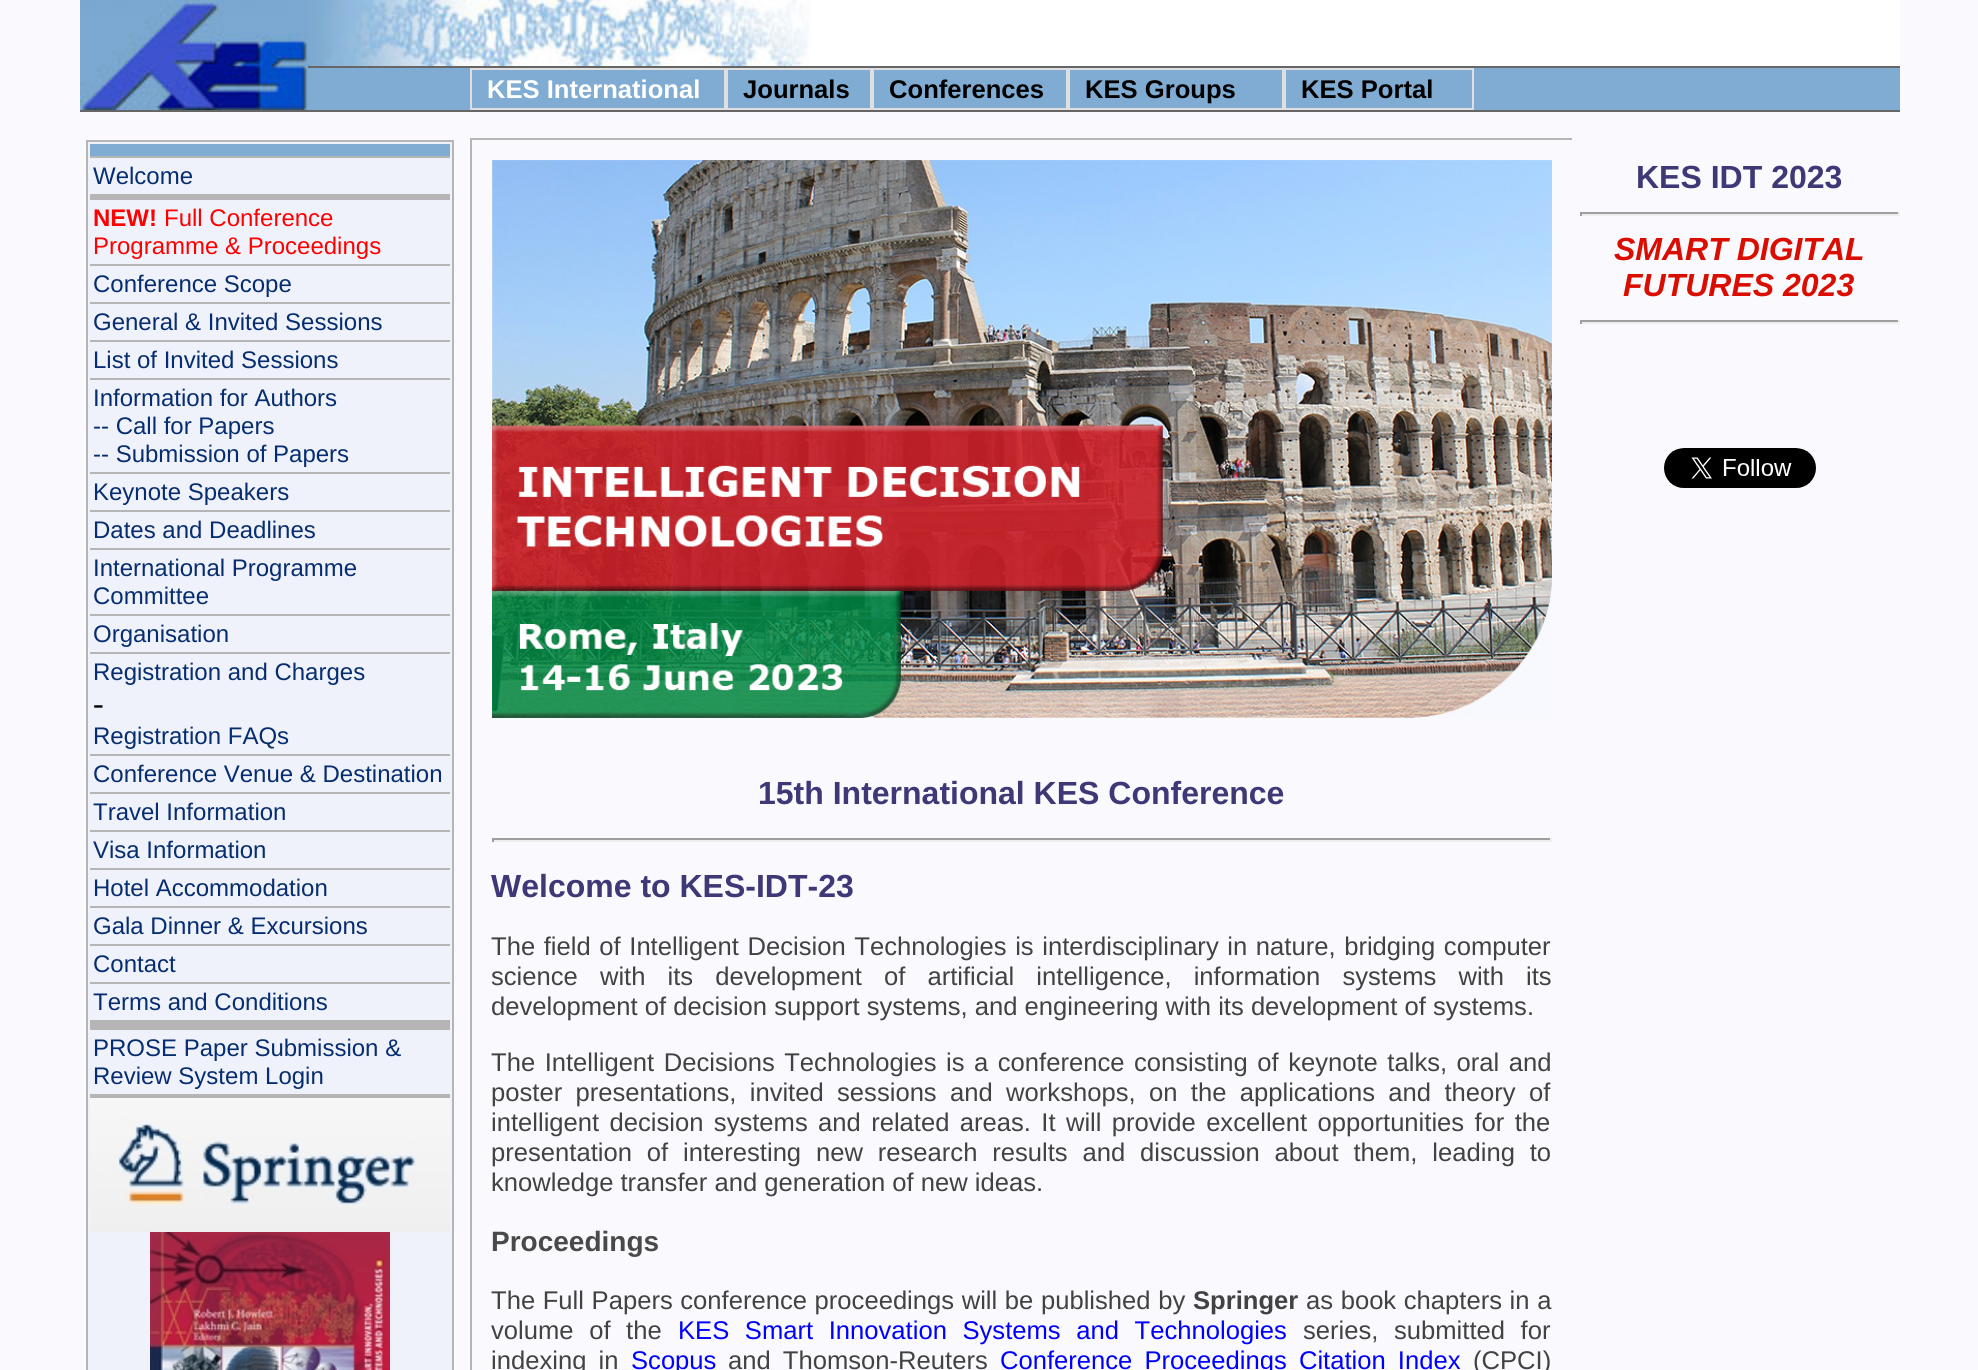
#include <cairo.h>
#include <math.h>
#include <stddef.h>


static void spaced_text(cairo_t *cr, double x, double y, const char *s, double letter, double word) {
    cairo_move_to(cr, x, y);
    while (*s) {
        char ch[5] = {0};
        int n = 0;
        do ch[n++] = *s++; while ((*s & 0xC0) == 0x80);
        cairo_show_text(cr, ch);
        cairo_rel_move_to(cr, letter + word * (*ch == ' '), 0);
    }
}

static void picture(cairo_t *cr, const char *path, double x, double y, double w, double h) {
    cairo_surface_t *image = cairo_image_surface_create_from_png(path);
    cairo_save(cr);
    cairo_set_source_surface(cr, image, x, y);
    cairo_rectangle(cr, x, y, w, h);
    cairo_fill(cr);
    cairo_restore(cr);
    cairo_surface_destroy(image);
}

int main(void) {
    cairo_surface_t *surface = cairo_image_surface_create(CAIRO_FORMAT_RGB24, 1978, 1370);
    cairo_t *cr = cairo_create(surface);
    cairo_font_options_t *options = cairo_font_options_create();
    cairo_font_options_set_hint_metrics(options, CAIRO_HINT_METRICS_OFF);
    cairo_font_options_set_hint_style(options, CAIRO_HINT_STYLE_NONE);
    cairo_set_font_options(cr, options);
    cairo_set_miter_limit(cr, 4);
    cairo_set_source_rgb(cr, 0.973, 0.976, 0.996);
    cairo_paint(cr);
    picture(cr, "img1.png", 80, 0, 228, 110);
    picture(cr, "img2.png", 308, 0, 502, 66);
    cairo_set_source_rgb(cr, 1, 1, 1);
    cairo_rectangle(cr, 810, 0, 1090, 66);
    cairo_fill(cr);
    cairo_set_source_rgb(cr, 0.502, 0.675, 0.827);
    cairo_rectangle(cr, 308, 68, 1592, 42);
    cairo_fill(cr);
    cairo_set_source_rgb(cr, 0.4, 0.4, 0.4);
    cairo_rectangle(cr, 308, 66, 1592, 2);
    cairo_fill(cr);
    cairo_rectangle(cr, 80, 110, 1820, 2);
    cairo_fill(cr);
    cairo_rectangle(cr, 471, 69, 254, 40);
    cairo_set_source_rgb(cr, 0.875, 0.875, 0.875);
    cairo_stroke(cr);
    cairo_select_font_face(cr, "Liberation Sans", CAIRO_FONT_SLANT_NORMAL, CAIRO_FONT_WEIGHT_BOLD);
    cairo_set_font_size(cr, 25.6);
    cairo_set_source_rgb(cr, 1, 1, 1);
    cairo_move_to(cr, 487, 98);
    cairo_show_text(cr, "KES International");
    cairo_rectangle(cr, 727, 69, 144, 40);
    cairo_set_source_rgb(cr, 0.875, 0.875, 0.875);
    cairo_stroke(cr);
    cairo_set_source_rgb(cr, 0, 0, 0);
    cairo_move_to(cr, 743, 98);
    cairo_show_text(cr, "Journals");
    cairo_rectangle(cr, 873, 69, 194, 40);
    cairo_set_source_rgb(cr, 0.875, 0.875, 0.875);
    cairo_stroke(cr);
    cairo_set_source_rgb(cr, 0, 0, 0);
    cairo_move_to(cr, 889, 98);
    cairo_show_text(cr, "Conferences");
    cairo_rectangle(cr, 1069, 69, 214, 40);
    cairo_set_source_rgb(cr, 0.875, 0.875, 0.875);
    cairo_stroke(cr);
    cairo_set_source_rgb(cr, 0, 0, 0);
    cairo_move_to(cr, 1085, 98);
    cairo_show_text(cr, "KES Groups");
    cairo_rectangle(cr, 1285, 69, 188, 40);
    cairo_set_source_rgb(cr, 0.875, 0.875, 0.875);
    cairo_stroke(cr);
    cairo_set_source_rgb(cr, 0, 0, 0);
    cairo_move_to(cr, 1301, 98);
    cairo_show_text(cr, "KES Portal");
    cairo_set_source_rgb(cr, 0.941, 0.949, 0.984);
    cairo_rectangle(cr, 87, 141, 366, 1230);
    cairo_fill_preserve(cr);
    cairo_set_source_rgb(cr, 0.71, 0.71, 0.71);
    cairo_stroke(cr);
    cairo_set_source_rgb(cr, 0.502, 0.675, 0.827);
    cairo_rectangle(cr, 90, 144, 360, 12);
    cairo_fill(cr);
    cairo_set_source_rgb(cr, 0.71, 0.71, 0.71);
    cairo_rectangle(cr, 90, 156, 360, 2);
    cairo_fill(cr);
    cairo_select_font_face(cr, "Liberation Sans", CAIRO_FONT_SLANT_NORMAL, CAIRO_FONT_WEIGHT_NORMAL);
    cairo_set_font_size(cr, 24);
    cairo_set_source_rgb(cr, 0.024, 0.176, 0.439);
    cairo_move_to(cr, 93, 184);
    cairo_show_text(cr, "Welcome");
    cairo_set_source_rgb(cr, 0.71, 0.71, 0.71);
    cairo_rectangle(cr, 90, 194, 360, 6);
    cairo_fill(cr);
    cairo_select_font_face(cr, "Liberation Sans", CAIRO_FONT_SLANT_NORMAL, CAIRO_FONT_WEIGHT_BOLD);
    cairo_set_source_rgb(cr, 1, 0, 0);
    cairo_move_to(cr, 93, 226);
    cairo_show_text(cr, "NEW!");
    cairo_select_font_face(cr, "Liberation Sans", CAIRO_FONT_SLANT_NORMAL, CAIRO_FONT_WEIGHT_NORMAL);
    cairo_move_to(cr, 164, 226);
    cairo_show_text(cr, "Full Conference");
    cairo_move_to(cr, 93, 254);
    cairo_show_text(cr, "Programme & Proceedings");
    cairo_set_source_rgb(cr, 0.71, 0.71, 0.71);
    cairo_rectangle(cr, 90, 264, 360, 2);
    cairo_fill(cr);
    cairo_set_source_rgb(cr, 0.024, 0.176, 0.439);
    cairo_move_to(cr, 93, 292);
    cairo_show_text(cr, "Conference Scope");
    cairo_set_source_rgb(cr, 0.71, 0.71, 0.71);
    cairo_rectangle(cr, 90, 302, 360, 2);
    cairo_fill(cr);
    cairo_set_source_rgb(cr, 0.024, 0.176, 0.439);
    cairo_move_to(cr, 93, 330);
    cairo_show_text(cr, "General & Invited Sessions");
    cairo_set_source_rgb(cr, 0.71, 0.71, 0.71);
    cairo_rectangle(cr, 90, 340, 360, 2);
    cairo_fill(cr);
    cairo_set_source_rgb(cr, 0.024, 0.176, 0.439);
    cairo_move_to(cr, 93, 368);
    cairo_show_text(cr, "List of Invited Sessions");
    cairo_set_source_rgb(cr, 0.71, 0.71, 0.71);
    cairo_rectangle(cr, 90, 378, 360, 2);
    cairo_fill(cr);
    cairo_set_source_rgb(cr, 0.024, 0.176, 0.439);
    cairo_move_to(cr, 93, 406);
    cairo_show_text(cr, "Information for Authors");
    cairo_move_to(cr, 93, 434);
    cairo_show_text(cr, "-- Call for Papers");
    cairo_move_to(cr, 93, 462);
    cairo_show_text(cr, "-- Submission of Papers");
    cairo_set_source_rgb(cr, 0.71, 0.71, 0.71);
    cairo_rectangle(cr, 90, 472, 360, 2);
    cairo_fill(cr);
    cairo_set_source_rgb(cr, 0.024, 0.176, 0.439);
    cairo_move_to(cr, 93, 500);
    cairo_show_text(cr, "Keynote Speakers");
    cairo_set_source_rgb(cr, 0.71, 0.71, 0.71);
    cairo_rectangle(cr, 90, 510, 360, 2);
    cairo_fill(cr);
    cairo_set_source_rgb(cr, 0.024, 0.176, 0.439);
    cairo_move_to(cr, 93, 538);
    cairo_show_text(cr, "Dates and Deadlines");
    cairo_set_source_rgb(cr, 0.71, 0.71, 0.71);
    cairo_rectangle(cr, 90, 548, 360, 2);
    cairo_fill(cr);
    cairo_set_source_rgb(cr, 0.024, 0.176, 0.439);
    cairo_move_to(cr, 93, 576);
    cairo_show_text(cr, "International Programme");
    cairo_move_to(cr, 93, 604);
    cairo_show_text(cr, "Committee");
    cairo_set_source_rgb(cr, 0.71, 0.71, 0.71);
    cairo_rectangle(cr, 90, 614, 360, 2);
    cairo_fill(cr);
    cairo_set_source_rgb(cr, 0.024, 0.176, 0.439);
    cairo_move_to(cr, 93, 642);
    cairo_show_text(cr, "Organisation");
    cairo_set_source_rgb(cr, 0.71, 0.71, 0.71);
    cairo_rectangle(cr, 90, 652, 360, 2);
    cairo_fill(cr);
    cairo_set_source_rgb(cr, 0.024, 0.176, 0.439);
    cairo_move_to(cr, 93, 680);
    cairo_show_text(cr, "Registration and Charges");
    cairo_select_font_face(cr, "Liberation Serif", CAIRO_FONT_SLANT_NORMAL, CAIRO_FONT_WEIGHT_NORMAL);
    cairo_set_font_size(cr, 32);
    cairo_set_source_rgb(cr, 0, 0, 0);
    cairo_move_to(cr, 93, 714);
    cairo_show_text(cr, "-");
    cairo_select_font_face(cr, "Liberation Sans", CAIRO_FONT_SLANT_NORMAL, CAIRO_FONT_WEIGHT_NORMAL);
    cairo_set_font_size(cr, 24);
    cairo_set_source_rgb(cr, 0.024, 0.176, 0.439);
    cairo_move_to(cr, 93, 744);
    cairo_show_text(cr, "Registration FAQs");
    cairo_set_source_rgb(cr, 0.71, 0.71, 0.71);
    cairo_rectangle(cr, 90, 754, 360, 2);
    cairo_fill(cr);
    cairo_set_source_rgb(cr, 0.024, 0.176, 0.439);
    cairo_move_to(cr, 93, 782);
    cairo_show_text(cr, "Conference Venue & Destination");
    cairo_set_source_rgb(cr, 0.71, 0.71, 0.71);
    cairo_rectangle(cr, 90, 792, 360, 2);
    cairo_fill(cr);
    cairo_set_source_rgb(cr, 0.024, 0.176, 0.439);
    cairo_move_to(cr, 93, 820);
    cairo_show_text(cr, "Travel Information");
    cairo_set_source_rgb(cr, 0.71, 0.71, 0.71);
    cairo_rectangle(cr, 90, 830, 360, 2);
    cairo_fill(cr);
    cairo_set_source_rgb(cr, 0.024, 0.176, 0.439);
    cairo_move_to(cr, 93, 858);
    cairo_show_text(cr, "Visa Information");
    cairo_set_source_rgb(cr, 0.71, 0.71, 0.71);
    cairo_rectangle(cr, 90, 868, 360, 2);
    cairo_fill(cr);
    cairo_set_source_rgb(cr, 0.024, 0.176, 0.439);
    cairo_move_to(cr, 93, 896);
    cairo_show_text(cr, "Hotel Accommodation");
    cairo_set_source_rgb(cr, 0.71, 0.71, 0.71);
    cairo_rectangle(cr, 90, 906, 360, 2);
    cairo_fill(cr);
    cairo_set_source_rgb(cr, 0.024, 0.176, 0.439);
    cairo_move_to(cr, 93, 934);
    cairo_show_text(cr, "Gala Dinner & Excursions");
    cairo_set_source_rgb(cr, 0.71, 0.71, 0.71);
    cairo_rectangle(cr, 90, 944, 360, 2);
    cairo_fill(cr);
    cairo_set_source_rgb(cr, 0.024, 0.176, 0.439);
    cairo_move_to(cr, 93, 972);
    cairo_show_text(cr, "Contact");
    cairo_set_source_rgb(cr, 0.71, 0.71, 0.71);
    cairo_rectangle(cr, 90, 982, 360, 2);
    cairo_fill(cr);
    cairo_set_source_rgb(cr, 0.024, 0.176, 0.439);
    cairo_move_to(cr, 93, 1010);
    cairo_show_text(cr, "Terms and Conditions");
    cairo_set_source_rgb(cr, 0.71, 0.71, 0.71);
    cairo_rectangle(cr, 90, 1020, 360, 10);
    cairo_fill(cr);
    cairo_set_source_rgb(cr, 0.024, 0.176, 0.439);
    cairo_move_to(cr, 93, 1056);
    cairo_show_text(cr, "PROSE Paper Submission &");
    cairo_move_to(cr, 93, 1084);
    cairo_show_text(cr, "Review System Login");
    cairo_set_source_rgb(cr, 0.71, 0.71, 0.71);
    cairo_rectangle(cr, 90, 1094, 360, 4);
    cairo_fill(cr);
    picture(cr, "img3.png", 90, 1098, 360, 134);
    picture(cr, "img4.png", 150, 1232, 240, 138);
    cairo_rectangle(cr, 470, 138, 1102, 2);
    cairo_fill(cr);
    cairo_rectangle(cr, 470, 138, 2, 1232);
    cairo_fill(cr);
    picture(cr, "img5.png", 492, 160, 1060, 558);
    cairo_select_font_face(cr, "Liberation Sans", CAIRO_FONT_SLANT_NORMAL, CAIRO_FONT_WEIGHT_BOLD);
    cairo_set_font_size(cr, 32);
    cairo_set_source_rgb(cr, 0.243, 0.22, 0.467);
    cairo_move_to(cr, 758, 804);
    cairo_show_text(cr, "15th International KES Conference");
    cairo_set_source_rgb(cr, 0.624, 0.624, 0.624);
    cairo_rectangle(cr, 492, 838, 1060, 2);
    cairo_fill(cr);
    cairo_set_source_rgb(cr, 0.933, 0.933, 0.933);
    cairo_rectangle(cr, 1550, 838, 2, 4);
    cairo_fill(cr);
    cairo_rectangle(cr, 492, 840, 1060, 2);
    cairo_fill(cr);
    cairo_set_source_rgb(cr, 0.624, 0.624, 0.624);
    cairo_rectangle(cr, 492, 838, 2, 4);
    cairo_fill(cr);
    cairo_set_source_rgb(cr, 0.243, 0.22, 0.467);
    cairo_move_to(cr, 491, 897);
    cairo_show_text(cr, "Welcome to KES-IDT-23");
    cairo_select_font_face(cr, "Liberation Sans", CAIRO_FONT_SLANT_NORMAL, CAIRO_FONT_WEIGHT_NORMAL);
    cairo_set_font_size(cr, 25.6);
    cairo_set_source_rgb(cr, 0.259, 0.259, 0.259);
    spaced_text(cr, 491, 955, "The field of Intelligent Decision Technologies is interdisciplinary in nature, bridging computer", 0, 1.5);
    spaced_text(cr, 491, 985, "science with its development of artificial intelligence, information systems with its", 0, 15);
    cairo_move_to(cr, 491, 1015);
    cairo_show_text(cr, "development of decision support systems, and engineering with its development of systems.");
    spaced_text(cr, 491, 1071, "The Intelligent Decisions Technologies is a conference consisting of keynote talks, oral and", 0, 2.4);
    spaced_text(cr, 491, 1101, "poster presentations, invited sessions and workshops, on the applications and theory of", 0, 6.25);
    spaced_text(cr, 491, 1131, "intelligent decision systems and related areas. It will provide excellent opportunities for the", 0, 3.25);
    spaced_text(cr, 491, 1161, "presentation of interesting new research results and discussion about them, leading to", 0, 7.75);
    cairo_move_to(cr, 491, 1191);
    cairo_show_text(cr, "knowledge transfer and generation of new ideas.");
    cairo_select_font_face(cr, "Liberation Sans", CAIRO_FONT_SLANT_NORMAL, CAIRO_FONT_WEIGHT_BOLD);
    cairo_set_font_size(cr, 28);
    cairo_set_source_rgb(cr, 0.286, 0.286, 0.286);
    cairo_move_to(cr, 491, 1251);
    cairo_show_text(cr, "Proceedings");
    cairo_select_font_face(cr, "Liberation Sans", CAIRO_FONT_SLANT_NORMAL, CAIRO_FONT_WEIGHT_NORMAL);
    cairo_set_font_size(cr, 25.6);
    cairo_set_source_rgb(cr, 0.259, 0.259, 0.259);
    spaced_text(cr, 491, 1309, "The Full Papers conference proceedings will be published by", 0, 0.5);
    cairo_select_font_face(cr, "Liberation Sans", CAIRO_FONT_SLANT_NORMAL, CAIRO_FONT_WEIGHT_BOLD);
    cairo_move_to(cr, 1193, 1309);
    cairo_show_text(cr, "Springer");
    cairo_select_font_face(cr, "Liberation Sans", CAIRO_FONT_SLANT_NORMAL, CAIRO_FONT_WEIGHT_NORMAL);
    spaced_text(cr, 1306, 1309, "as book chapters in a", 0, 0.5);
    spaced_text(cr, 491, 1339, "volume of the", 0, 8.5);
    cairo_set_source_rgb(cr, 0, 0, 1);
    spaced_text(cr, 678, 1339, "KES Smart Innovation Systems and Technologies", 0, 8.5);
    cairo_set_source_rgb(cr, 0.259, 0.259, 0.259);
    cairo_move_to(cr, 1303, 1339);
    cairo_show_text(cr, "series,");
    spaced_text(cr, 1394, 1339, "submitted for", 0, 8.5);
    spaced_text(cr, 491, 1369, "indexing in", 0, 5);
    cairo_set_source_rgb(cr, 0, 0, 1);
    cairo_move_to(cr, 631, 1369);
    cairo_show_text(cr, "Scopus");
    cairo_set_source_rgb(cr, 0.259, 0.259, 0.259);
    spaced_text(cr, 728, 1369, "and Thomson-Reuters", 0, 5);
    cairo_set_source_rgb(cr, 0, 0, 1);
    spaced_text(cr, 1000, 1369, "Conference Proceedings Citation Index", 0, 5);
    cairo_set_source_rgb(cr, 0.259, 0.259, 0.259);
    cairo_move_to(cr, 1473, 1369);
    cairo_show_text(cr, "(CPCI)");
    cairo_select_font_face(cr, "Liberation Sans", CAIRO_FONT_SLANT_NORMAL, CAIRO_FONT_WEIGHT_BOLD);
    cairo_set_font_size(cr, 32);
    cairo_set_source_rgb(cr, 0.243, 0.22, 0.467);
    cairo_move_to(cr, 1636, 188);
    cairo_show_text(cr, "KES IDT 2023");
    cairo_set_source_rgb(cr, 0.624, 0.624, 0.624);
    cairo_rectangle(cr, 1580, 212, 320, 2);
    cairo_fill(cr);
    cairo_set_source_rgb(cr, 0.933, 0.933, 0.933);
    cairo_rectangle(cr, 1898, 212, 2, 4);
    cairo_fill(cr);
    cairo_rectangle(cr, 1580, 214, 320, 2);
    cairo_fill(cr);
    cairo_set_source_rgb(cr, 0.624, 0.624, 0.624);
    cairo_rectangle(cr, 1580, 212, 2, 4);
    cairo_fill(cr);
    cairo_select_font_face(cr, "Liberation Sans", CAIRO_FONT_SLANT_ITALIC, CAIRO_FONT_WEIGHT_BOLD);
    cairo_set_source_rgb(cr, 0.855, 0.055, 0);
    cairo_move_to(cr, 1614, 260);
    cairo_show_text(cr, "SMART DIGITAL");
    cairo_move_to(cr, 1623, 296);
    cairo_show_text(cr, "FUTURES 2023");
    cairo_set_source_rgb(cr, 0.624, 0.624, 0.624);
    cairo_rectangle(cr, 1580, 320, 320, 2);
    cairo_fill(cr);
    cairo_set_source_rgb(cr, 0.933, 0.933, 0.933);
    cairo_rectangle(cr, 1898, 320, 2, 4);
    cairo_fill(cr);
    cairo_rectangle(cr, 1580, 322, 320, 2);
    cairo_fill(cr);
    cairo_set_source_rgb(cr, 0.624, 0.624, 0.624);
    cairo_rectangle(cr, 1580, 320, 2, 4);
    cairo_fill(cr);
    picture(cr, "img6.png", 1664, 448, 152, 40);
    cairo_surface_write_to_png(surface, "page.png");
    cairo_font_options_destroy(options);
    cairo_destroy(cr);
    cairo_surface_destroy(surface);
    return 0;
}
